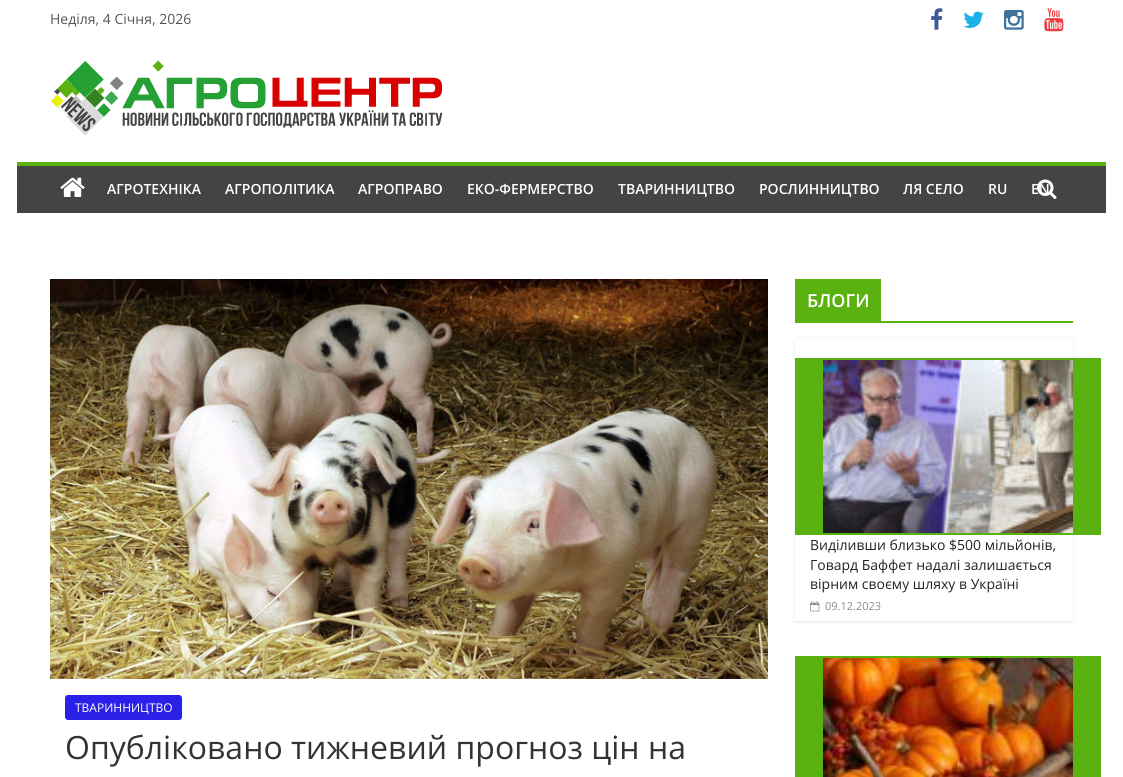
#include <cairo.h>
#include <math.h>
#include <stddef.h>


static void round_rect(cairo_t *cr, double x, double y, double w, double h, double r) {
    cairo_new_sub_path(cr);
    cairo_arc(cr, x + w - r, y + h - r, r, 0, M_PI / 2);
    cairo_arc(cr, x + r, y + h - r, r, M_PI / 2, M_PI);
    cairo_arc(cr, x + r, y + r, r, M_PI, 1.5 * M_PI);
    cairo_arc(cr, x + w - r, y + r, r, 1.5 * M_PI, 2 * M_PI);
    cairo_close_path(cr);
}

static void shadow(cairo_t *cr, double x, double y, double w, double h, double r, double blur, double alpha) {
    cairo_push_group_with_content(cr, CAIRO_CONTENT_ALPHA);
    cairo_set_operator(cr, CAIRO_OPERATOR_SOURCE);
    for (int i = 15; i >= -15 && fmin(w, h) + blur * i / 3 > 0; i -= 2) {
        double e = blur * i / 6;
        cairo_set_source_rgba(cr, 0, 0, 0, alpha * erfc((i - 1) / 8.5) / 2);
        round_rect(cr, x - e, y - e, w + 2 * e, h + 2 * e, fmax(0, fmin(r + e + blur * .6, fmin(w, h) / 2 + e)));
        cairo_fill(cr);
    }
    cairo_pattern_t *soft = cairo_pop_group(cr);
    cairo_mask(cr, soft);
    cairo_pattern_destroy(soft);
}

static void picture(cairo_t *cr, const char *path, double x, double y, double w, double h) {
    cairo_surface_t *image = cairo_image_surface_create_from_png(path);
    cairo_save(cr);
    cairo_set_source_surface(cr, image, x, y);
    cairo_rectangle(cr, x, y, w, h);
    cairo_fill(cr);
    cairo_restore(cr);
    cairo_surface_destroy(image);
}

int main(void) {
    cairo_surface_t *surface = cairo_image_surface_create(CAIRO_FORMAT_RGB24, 1123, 777);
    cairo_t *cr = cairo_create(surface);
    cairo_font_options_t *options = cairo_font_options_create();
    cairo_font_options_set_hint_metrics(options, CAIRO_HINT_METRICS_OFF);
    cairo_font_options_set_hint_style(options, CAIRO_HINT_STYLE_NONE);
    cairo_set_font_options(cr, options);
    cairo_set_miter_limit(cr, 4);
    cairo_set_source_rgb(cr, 1, 1, 1);
    cairo_paint(cr);
    cairo_select_font_face(cr, "Open Sans", CAIRO_FONT_SLANT_NORMAL, CAIRO_FONT_WEIGHT_NORMAL);
    cairo_set_font_size(cr, 14);
    cairo_set_source_rgb(cr, 0.333, 0.333, 0.333);
    cairo_move_to(cr, 50, 24);
    cairo_show_text(cr, "Неділя, 4 Січня, 2026");
    picture(cr, "img1.png", 931, 8, 12, 22);
    picture(cr, "img2.png", 963, 11, 21, 17);
    picture(cr, "img3.png", 1004, 9, 20, 21);
    picture(cr, "img4.png", 1044, 8, 20, 24);
    picture(cr, "img5.png", 51, 60, 391, 75);
    cairo_set_source_rgb(cr, 0.267, 0.267, 0.267);
    cairo_rectangle(cr, 17, 166, 1089, 47);
    cairo_fill(cr);
    cairo_set_source_rgb(cr, 0.349, 0.698, 0.063);
    cairo_rectangle(cr, 17, 162, 1089, 4);
    cairo_fill(cr);
    picture(cr, "img6.png", 60, 177, 25, 20);
    cairo_select_font_face(cr, "Open Sans SemiBold", CAIRO_FONT_SLANT_NORMAL, CAIRO_FONT_WEIGHT_NORMAL);
    cairo_set_source_rgb(cr, 1, 1, 1);
    cairo_move_to(cr, 1031, 194);
    cairo_show_text(cr, "EN");
    picture(cr, "img7.png", 1037, 179, 20, 20);
    cairo_move_to(cr, 107, 194);
    cairo_show_text(cr, "АГРОТЕХНІКА");
    cairo_move_to(cr, 225, 194);
    cairo_show_text(cr, "АГРОПОЛІТИКА");
    cairo_move_to(cr, 358, 194);
    cairo_show_text(cr, "АГРОПРАВО");
    cairo_move_to(cr, 467, 194);
    cairo_show_text(cr, "ЕКО-ФЕРМЕРСТВО");
    cairo_move_to(cr, 618, 194);
    cairo_show_text(cr, "ТВАРИННИЦТВО");
    cairo_move_to(cr, 759, 194);
    cairo_show_text(cr, "РОСЛИННИЦТВО");
    cairo_move_to(cr, 903, 194);
    cairo_show_text(cr, "ЛЯ СЕЛО");
    cairo_move_to(cr, 988, 194);
    cairo_show_text(cr, "RU");
    cairo_set_source_rgb(cr, 0.349, 0.698, 0.063);
    cairo_rectangle(cr, 795, 321, 278, 2);
    cairo_fill(cr);
    cairo_rectangle(cr, 795, 279, 86, 42);
    cairo_fill(cr);
    cairo_set_font_size(cr, 18);
    cairo_set_source_rgb(cr, 1, 1, 1);
    cairo_move_to(cr, 807, 307);
    cairo_show_text(cr, "БЛОГИ");
    cairo_save(cr);
    cairo_set_fill_rule(cr, CAIRO_FILL_RULE_EVEN_ODD);
    cairo_new_path(cr);
    cairo_move_to(cr, 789, 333);
    cairo_line_to(cr, 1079, 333);
    cairo_line_to(cr, 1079, 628);
    cairo_line_to(cr, 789, 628);
    cairo_close_path(cr);
    cairo_move_to(cr, 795, 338);
    cairo_line_to(cr, 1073, 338);
    cairo_line_to(cr, 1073, 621);
    cairo_line_to(cr, 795, 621);
    cairo_close_path(cr);
    cairo_clip(cr);
    cairo_set_source_rgb(cr, 0, 0, 0);
    shadow(cr, 795, 339, 278, 283, 0, 1.5, 0.1);
    cairo_restore(cr);
    cairo_set_source_rgb(cr, 0.349, 0.698, 0.063);
    cairo_rectangle(cr, 795, 358, 306, 177);
    cairo_fill(cr);
    picture(cr, "img8.png", 823, 360, 250, 173);
    cairo_select_font_face(cr, "Open Sans", CAIRO_FONT_SLANT_NORMAL, CAIRO_FONT_WEIGHT_NORMAL);
    cairo_set_font_size(cr, 14);
    cairo_set_source_rgb(cr, 0.137, 0.137, 0.137);
    cairo_move_to(cr, 810, 550);
    cairo_show_text(cr, "Виділивши близько $500 мільйонів,");
    cairo_move_to(cr, 810, 570);
    cairo_show_text(cr, "Говард Баффет надалі залишається");
    cairo_move_to(cr, 810, 589);
    cairo_show_text(cr, "вірним своєму шляху в Україні");
    picture(cr, "img9.png", 810, 601, 10, 11);
    cairo_set_font_size(cr, 11);
    cairo_set_source_rgb(cr, 0.533, 0.533, 0.533);
    cairo_move_to(cr, 825, 610);
    cairo_show_text(cr, "09.12.2023");
    cairo_set_source_rgb(cr, 0.349, 0.698, 0.063);
    cairo_rectangle(cr, 795, 656, 306, 121);
    cairo_fill(cr);
    picture(cr, "img10.png", 823, 658, 250, 119);
    picture(cr, "img11.png", 50, 279, 718, 400);
    cairo_set_source_rgb(cr, 0.165, 0.125, 0.91);
    round_rect(cr, 65, 695, 117, 25, 3);
    cairo_fill(cr);
    cairo_set_font_size(cr, 12);
    cairo_set_source_rgb(cr, 1, 1, 1);
    cairo_move_to(cr, 75, 712);
    cairo_show_text(cr, "ТВАРИННИЦТВО");
    cairo_set_font_size(cr, 32);
    cairo_set_source_rgb(cr, 0.2, 0.2, 0.2);
    cairo_move_to(cr, 65, 759);
    cairo_show_text(cr, "Опубліковано тижневий прогноз цін на");
    cairo_surface_write_to_png(surface, "page.png");
    cairo_font_options_destroy(options);
    cairo_destroy(cr);
    cairo_surface_destroy(surface);
    return 0;
}
